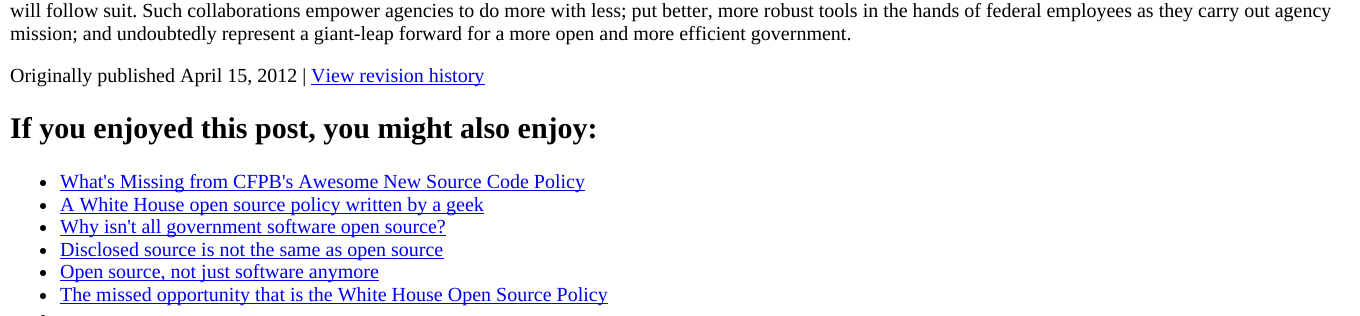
#include <cairo.h>
#include <math.h>
#include <stddef.h>


static void round_rect(cairo_t *cr, double x, double y, double w, double h, double r) {
    cairo_new_sub_path(cr);
    cairo_arc(cr, x + w - r, y + h - r, r, 0, M_PI / 2);
    cairo_arc(cr, x + r, y + h - r, r, M_PI / 2, M_PI);
    cairo_arc(cr, x + r, y + r, r, M_PI, 1.5 * M_PI);
    cairo_arc(cr, x + w - r, y + r, r, 1.5 * M_PI, 2 * M_PI);
    cairo_close_path(cr);
}

int main(void) {
    cairo_surface_t *surface = cairo_image_surface_create(CAIRO_FORMAT_RGB24, 1360, 316);
    cairo_t *cr = cairo_create(surface);
    cairo_font_options_t *options = cairo_font_options_create();
    cairo_font_options_set_hint_metrics(options, CAIRO_HINT_METRICS_OFF);
    cairo_font_options_set_hint_style(options, CAIRO_HINT_STYLE_NONE);
    cairo_set_font_options(cr, options);
    cairo_set_miter_limit(cr, 4);
    cairo_set_source_rgb(cr, 1, 1, 1);
    cairo_paint(cr);
    cairo_select_font_face(cr, "Liberation Serif", CAIRO_FONT_SLANT_NORMAL, CAIRO_FONT_WEIGHT_NORMAL);
    cairo_set_font_size(cr, 20);
    cairo_set_source_rgb(cr, 0, 0, 0);
    cairo_move_to(cr, 10, 17);
    cairo_show_text(cr, "will follow suit. Such collaborations empower agencies to do more with less; put better, more robust tools in the hands of federal employees as they carry out agency");
    cairo_move_to(cr, 10, 40);
    cairo_show_text(cr, "mission; and undoubtedly represent a giant-leap forward for a more open and more efficient government.");
    cairo_move_to(cr, 10, 82);
    cairo_show_text(cr, "Originally published April 15, 2012 |");
    cairo_set_source_rgb(cr, 0, 0, 0.933);
    cairo_rectangle(cr, 311, 84, 174, 1);
    cairo_fill(cr);
    cairo_move_to(cr, 311, 82);
    cairo_show_text(cr, "View revision history");
    cairo_select_font_face(cr, "Liberation Serif", CAIRO_FONT_SLANT_NORMAL, CAIRO_FONT_WEIGHT_BOLD);
    cairo_set_font_size(cr, 30);
    cairo_set_source_rgb(cr, 0, 0, 0);
    cairo_move_to(cr, 10, 138);
    cairo_show_text(cr, "If you enjoyed this post, you might also enjoy:");
    cairo_new_path(cr);
    cairo_arc(cr, 43, 183, 3, 0, 2 * M_PI);
    cairo_fill(cr);
    cairo_set_source_rgb(cr, 0, 0, 0.933);
    cairo_rectangle(cr, 60, 190, 525, 1);
    cairo_fill(cr);
    cairo_select_font_face(cr, "Liberation Serif", CAIRO_FONT_SLANT_NORMAL, CAIRO_FONT_WEIGHT_NORMAL);
    cairo_set_font_size(cr, 20);
    cairo_move_to(cr, 60, 188);
    cairo_show_text(cr, "What's Missing from CFPB's Awesome New Source Code Policy");
    cairo_set_source_rgb(cr, 0, 0, 0);
    cairo_new_path(cr);
    cairo_arc(cr, 43, 206, 3, 0, 2 * M_PI);
    cairo_fill(cr);
    cairo_set_source_rgb(cr, 0, 0, 0.933);
    cairo_rectangle(cr, 60, 213, 424, 1);
    cairo_fill(cr);
    cairo_move_to(cr, 60, 211);
    cairo_show_text(cr, "A White House open source policy written by a geek");
    cairo_set_source_rgb(cr, 0, 0, 0);
    cairo_new_path(cr);
    cairo_arc(cr, 43, 228, 3, 0, 2 * M_PI);
    cairo_fill(cr);
    cairo_set_source_rgb(cr, 0, 0, 0.933);
    cairo_rectangle(cr, 60, 235, 386, 1);
    cairo_fill(cr);
    cairo_move_to(cr, 60, 233);
    cairo_show_text(cr, "Why isn't all government software open source?");
    cairo_set_source_rgb(cr, 0, 0, 0);
    cairo_new_path(cr);
    cairo_arc(cr, 43, 251, 3, 0, 2 * M_PI);
    cairo_fill(cr);
    cairo_set_source_rgb(cr, 0, 0, 0.933);
    cairo_rectangle(cr, 60, 258, 384, 1);
    cairo_fill(cr);
    cairo_move_to(cr, 60, 256);
    cairo_show_text(cr, "Disclosed source is not the same as open source");
    cairo_set_source_rgb(cr, 0, 0, 0);
    cairo_new_path(cr);
    cairo_arc(cr, 43, 273, 3, 0, 2 * M_PI);
    cairo_fill(cr);
    cairo_set_source_rgb(cr, 0, 0, 0.933);
    cairo_rectangle(cr, 60, 280, 319, 1);
    cairo_fill(cr);
    cairo_move_to(cr, 60, 278);
    cairo_show_text(cr, "Open source, not just software anymore");
    cairo_set_source_rgb(cr, 0, 0, 0);
    cairo_new_path(cr);
    cairo_arc(cr, 43, 296, 3, 0, 2 * M_PI);
    cairo_fill(cr);
    cairo_set_source_rgb(cr, 0, 0, 0.933);
    cairo_rectangle(cr, 60, 303, 548, 1);
    cairo_fill(cr);
    cairo_move_to(cr, 60, 301);
    cairo_show_text(cr, "The missed opportunity that is the White House Open Source Policy");
    cairo_set_source_rgb(cr, 0, 0, 0);
    round_rect(cr, 40, 315, 6, 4, 3);
    cairo_fill(cr);
    cairo_surface_write_to_png(surface, "page.png");
    cairo_font_options_destroy(options);
    cairo_destroy(cr);
    cairo_surface_destroy(surface);
    return 0;
}
